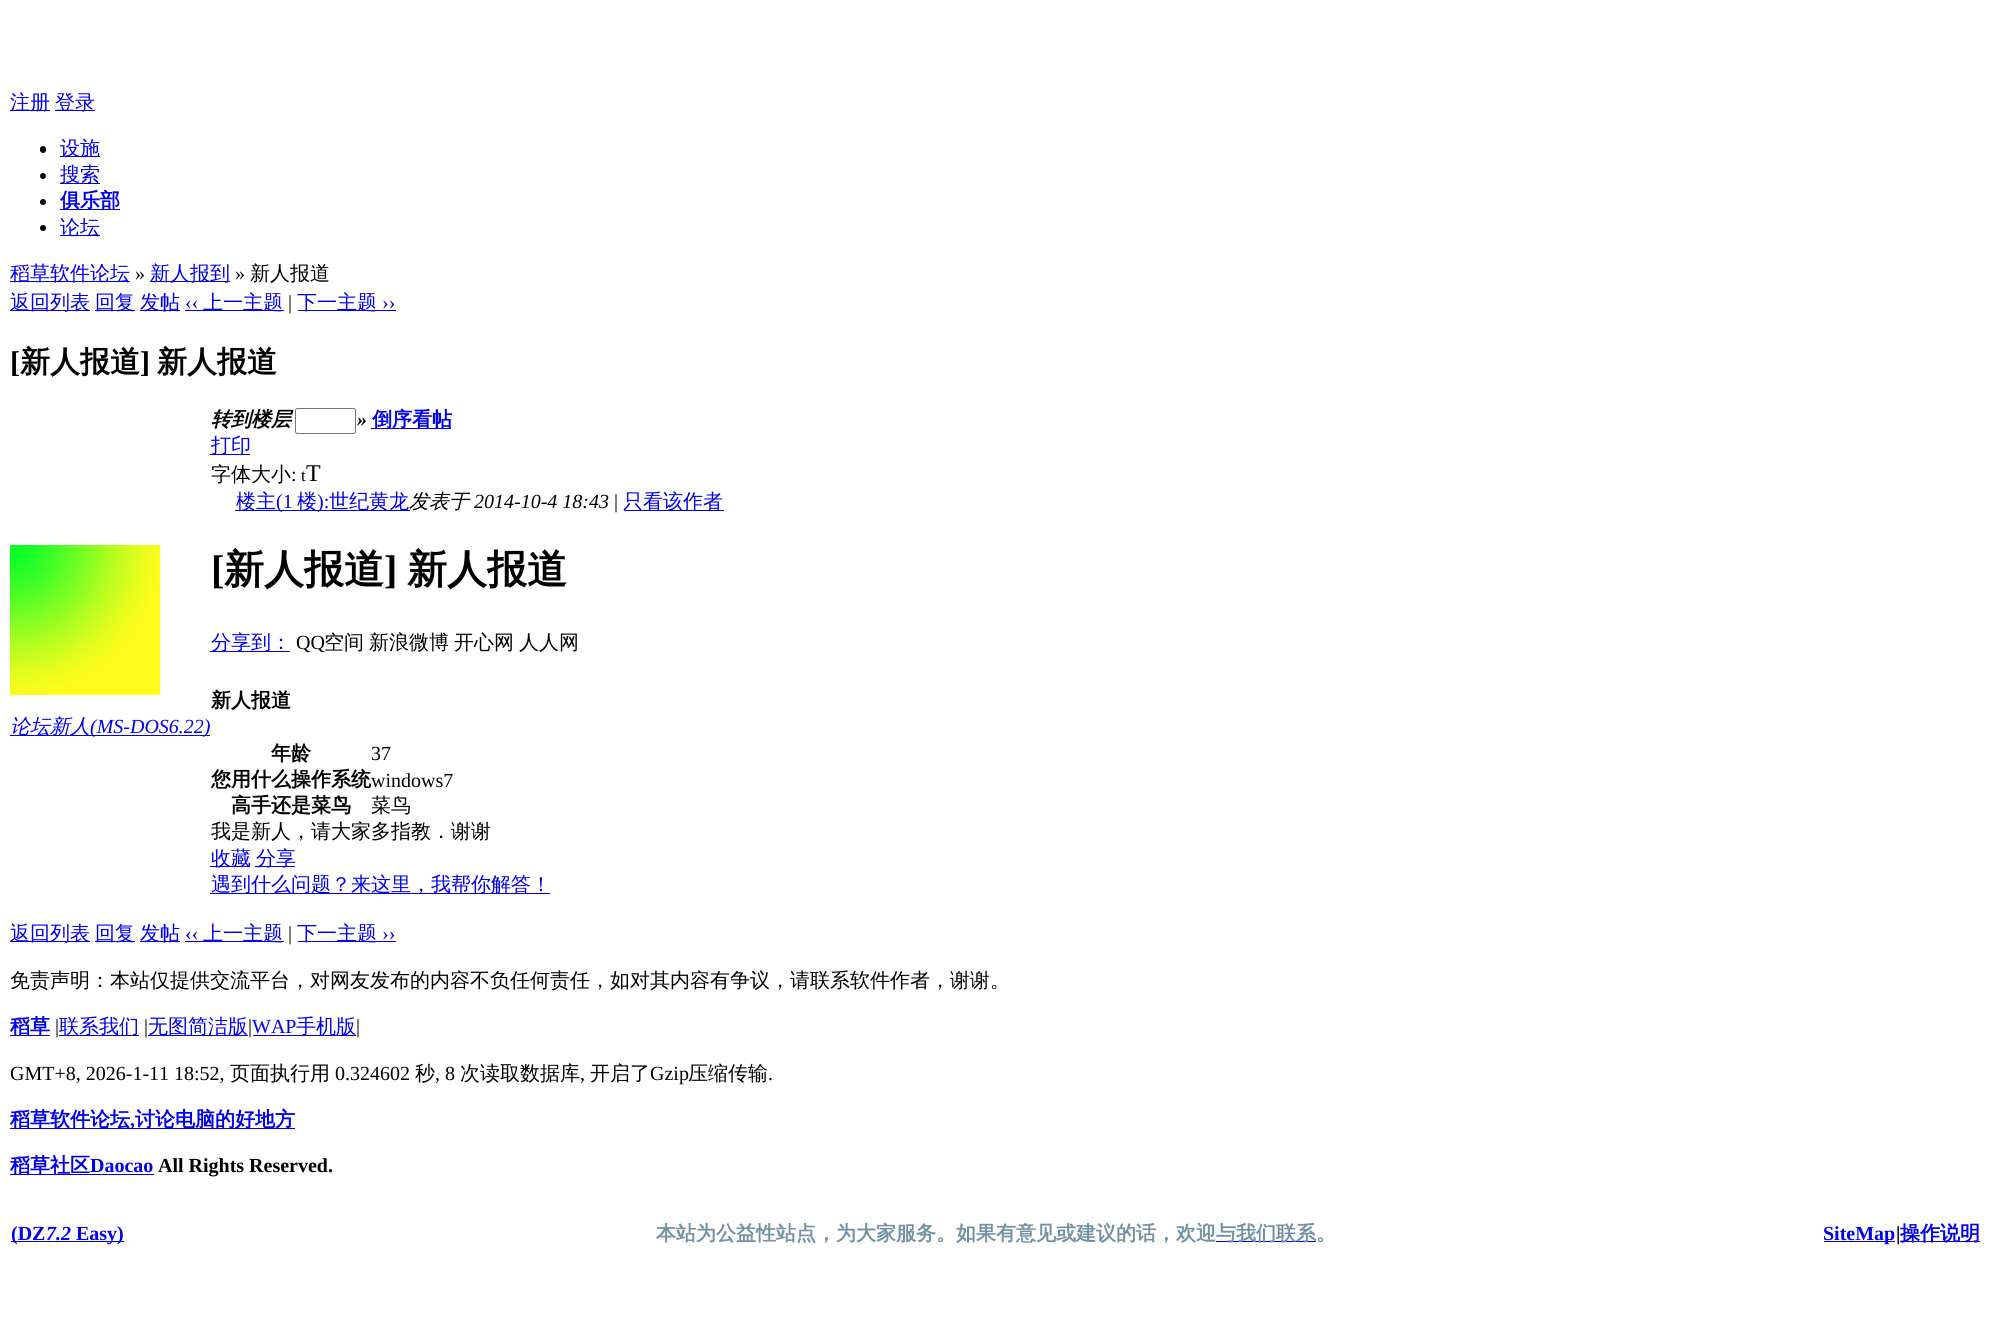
#include <cairo.h>
#include <math.h>
#include <stddef.h>


static void round_rect(cairo_t *cr, double x, double y, double w, double h, double r) {
    cairo_new_sub_path(cr);
    cairo_arc(cr, x + w - r, y + h - r, r, 0, M_PI / 2);
    cairo_arc(cr, x + r, y + h - r, r, M_PI / 2, M_PI);
    cairo_arc(cr, x + r, y + r, r, M_PI, 1.5 * M_PI);
    cairo_arc(cr, x + w - r, y + r, r, 1.5 * M_PI, 2 * M_PI);
    cairo_close_path(cr);
}

static void picture(cairo_t *cr, const char *path, double x, double y, double w, double h) {
    cairo_surface_t *image = cairo_image_surface_create_from_png(path);
    cairo_save(cr);
    cairo_set_source_surface(cr, image, x, y);
    cairo_rectangle(cr, x, y, w, h);
    cairo_fill(cr);
    cairo_restore(cr);
    cairo_surface_destroy(image);
}

int main(void) {
    cairo_surface_t *surface = cairo_image_surface_create(CAIRO_FORMAT_RGB24, 1991, 1343);
    cairo_t *cr = cairo_create(surface);
    cairo_font_options_t *options = cairo_font_options_create();
    cairo_font_options_set_hint_metrics(options, CAIRO_HINT_METRICS_OFF);
    cairo_font_options_set_hint_style(options, CAIRO_HINT_STYLE_NONE);
    cairo_set_font_options(cr, options);
    cairo_set_miter_limit(cr, 4);
    cairo_set_source_rgb(cr, 1, 1, 1);
    cairo_paint(cr);
    cairo_set_source_rgb(cr, 0, 0, 0.933);
    cairo_rectangle(cr, 10, 110, 40, 1);
    cairo_fill(cr);
    cairo_select_font_face(cr, "WenQuanYi Zen Hei Medium", CAIRO_FONT_SLANT_NORMAL, CAIRO_FONT_WEIGHT_NORMAL);
    cairo_set_font_size(cr, 20);
    cairo_move_to(cr, 10, 109);
    cairo_show_text(cr, "注册");
    cairo_rectangle(cr, 55, 110, 40, 1);
    cairo_fill(cr);
    cairo_move_to(cr, 55, 109);
    cairo_show_text(cr, "登录");
    cairo_set_source_rgb(cr, 0, 0, 0);
    round_rect(cr, 40, 146, 6, 7, 3);
    cairo_fill(cr);
    cairo_set_source_rgb(cr, 0, 0, 0.933);
    cairo_rectangle(cr, 60, 156, 40, 1);
    cairo_fill(cr);
    cairo_move_to(cr, 60, 155);
    cairo_show_text(cr, "设施");
    cairo_set_source_rgb(cr, 0, 0, 0);
    cairo_new_path(cr);
    cairo_arc(cr, 43, 176, 3, 0, 2 * M_PI);
    cairo_fill(cr);
    cairo_set_source_rgb(cr, 0, 0, 0.933);
    cairo_rectangle(cr, 60, 183, 40, 1);
    cairo_fill(cr);
    cairo_move_to(cr, 60, 181);
    cairo_show_text(cr, "搜索");
    cairo_set_source_rgb(cr, 0, 0, 0);
    cairo_new_path(cr);
    cairo_arc(cr, 43, 202, 3, 0, 2 * M_PI);
    cairo_fill(cr);
    cairo_set_source_rgb(cr, 0, 0, 0.933);
    cairo_rectangle(cr, 60, 209, 60, 1);
    cairo_fill(cr);
    cairo_select_font_face(cr, "WenQuanYi Zen Hei", CAIRO_FONT_SLANT_NORMAL, CAIRO_FONT_WEIGHT_BOLD);
    cairo_move_to(cr, 60, 207);
    cairo_show_text(cr, "俱乐部");
    cairo_set_source_rgb(cr, 0, 0, 0);
    cairo_new_path(cr);
    cairo_arc(cr, 43, 228, 3, 0, 2 * M_PI);
    cairo_fill(cr);
    cairo_set_source_rgb(cr, 0, 0, 0.933);
    cairo_rectangle(cr, 60, 235, 40, 1);
    cairo_fill(cr);
    cairo_select_font_face(cr, "WenQuanYi Zen Hei Medium", CAIRO_FONT_SLANT_NORMAL, CAIRO_FONT_WEIGHT_NORMAL);
    cairo_move_to(cr, 60, 234);
    cairo_show_text(cr, "论坛");
    cairo_rectangle(cr, 10, 281, 120, 1);
    cairo_fill(cr);
    cairo_move_to(cr, 10, 280);
    cairo_show_text(cr, "稻草软件论坛");
    cairo_select_font_face(cr, "Liberation Serif", CAIRO_FONT_SLANT_NORMAL, CAIRO_FONT_WEIGHT_NORMAL);
    cairo_set_source_rgb(cr, 0, 0, 0);
    cairo_move_to(cr, 135, 280);
    cairo_show_text(cr, "»");
    cairo_set_source_rgb(cr, 0, 0, 0.933);
    cairo_rectangle(cr, 150, 281, 80, 1);
    cairo_fill(cr);
    cairo_select_font_face(cr, "WenQuanYi Zen Hei Medium", CAIRO_FONT_SLANT_NORMAL, CAIRO_FONT_WEIGHT_NORMAL);
    cairo_move_to(cr, 150, 280);
    cairo_show_text(cr, "新人报到");
    cairo_select_font_face(cr, "Liberation Serif", CAIRO_FONT_SLANT_NORMAL, CAIRO_FONT_WEIGHT_NORMAL);
    cairo_set_source_rgb(cr, 0, 0, 0);
    cairo_move_to(cr, 235, 280);
    cairo_show_text(cr, "»");
    cairo_select_font_face(cr, "WenQuanYi Zen Hei Medium", CAIRO_FONT_SLANT_NORMAL, CAIRO_FONT_WEIGHT_NORMAL);
    cairo_move_to(cr, 250, 280);
    cairo_show_text(cr, "新人报道");
    cairo_set_source_rgb(cr, 0, 0, 0.933);
    cairo_rectangle(cr, 10, 310, 80, 1);
    cairo_fill(cr);
    cairo_move_to(cr, 10, 309);
    cairo_show_text(cr, "返回列表");
    cairo_rectangle(cr, 95, 310, 40, 1);
    cairo_fill(cr);
    cairo_move_to(cr, 95, 309);
    cairo_show_text(cr, "回复");
    cairo_rectangle(cr, 140, 310, 40, 1);
    cairo_fill(cr);
    cairo_move_to(cr, 140, 309);
    cairo_show_text(cr, "发帖");
    cairo_select_font_face(cr, "Liberation Serif", CAIRO_FONT_SLANT_NORMAL, CAIRO_FONT_WEIGHT_NORMAL);
    cairo_move_to(cr, 185, 309);
    cairo_show_text(cr, "‹‹");
    cairo_rectangle(cr, 185, 310, 99, 1);
    cairo_fill(cr);
    cairo_select_font_face(cr, "WenQuanYi Zen Hei Medium", CAIRO_FONT_SLANT_NORMAL, CAIRO_FONT_WEIGHT_NORMAL);
    cairo_move_to(cr, 203, 309);
    cairo_show_text(cr, "上一主题");
    cairo_select_font_face(cr, "Liberation Serif", CAIRO_FONT_SLANT_NORMAL, CAIRO_FONT_WEIGHT_NORMAL);
    cairo_set_source_rgb(cr, 0, 0, 0);
    cairo_move_to(cr, 288, 309);
    cairo_show_text(cr, "|");
    cairo_set_source_rgb(cr, 0, 0, 0.933);
    cairo_rectangle(cr, 298, 310, 98, 1);
    cairo_fill(cr);
    cairo_select_font_face(cr, "WenQuanYi Zen Hei Medium", CAIRO_FONT_SLANT_NORMAL, CAIRO_FONT_WEIGHT_NORMAL);
    cairo_move_to(cr, 297, 309);
    cairo_show_text(cr, "下一主题");
    cairo_select_font_face(cr, "Liberation Serif", CAIRO_FONT_SLANT_NORMAL, CAIRO_FONT_WEIGHT_NORMAL);
    cairo_move_to(cr, 382, 309);
    cairo_show_text(cr, "››");
    cairo_select_font_face(cr, "Liberation Serif", CAIRO_FONT_SLANT_NORMAL, CAIRO_FONT_WEIGHT_BOLD);
    cairo_set_font_size(cr, 30);
    cairo_set_source_rgb(cr, 0, 0, 0);
    cairo_move_to(cr, 10, 372);
    cairo_show_text(cr, "[");
    cairo_select_font_face(cr, "WenQuanYi Zen Hei", CAIRO_FONT_SLANT_NORMAL, CAIRO_FONT_WEIGHT_BOLD);
    cairo_move_to(cr, 20, 372);
    cairo_show_text(cr, "新人报道");
    cairo_select_font_face(cr, "Liberation Serif", CAIRO_FONT_SLANT_NORMAL, CAIRO_FONT_WEIGHT_BOLD);
    cairo_move_to(cr, 140, 372);
    cairo_show_text(cr, "]");
    cairo_select_font_face(cr, "WenQuanYi Zen Hei", CAIRO_FONT_SLANT_NORMAL, CAIRO_FONT_WEIGHT_BOLD);
    cairo_move_to(cr, 157, 372);
    cairo_show_text(cr, "新人报道");
    picture(cr, "img1.png", 10, 545, 150, 150);
    cairo_set_source_rgb(cr, 0, 0, 0.933);
    cairo_rectangle(cr, 10, 735, 200, 1);
    cairo_fill(cr);
    cairo_select_font_face(cr, "WenQuanYi Zen Hei Medium", CAIRO_FONT_SLANT_ITALIC, CAIRO_FONT_WEIGHT_NORMAL);
    cairo_set_font_size(cr, 20);
    cairo_move_to(cr, 10, 733);
    cairo_show_text(cr, "论坛新人");
    cairo_select_font_face(cr, "Liberation Serif", CAIRO_FONT_SLANT_ITALIC, CAIRO_FONT_WEIGHT_NORMAL);
    cairo_move_to(cr, 90, 733);
    cairo_show_text(cr, "(MS-DOS6.22)");
    cairo_select_font_face(cr, "WenQuanYi Zen Hei", CAIRO_FONT_SLANT_ITALIC, CAIRO_FONT_WEIGHT_BOLD);
    cairo_set_source_rgb(cr, 0, 0, 0);
    cairo_move_to(cr, 211, 426);
    cairo_show_text(cr, "转到楼层");
    round_rect(cr, 295.5, 408.5, 60, 25, 2);
    cairo_set_source_rgb(cr, 0.463, 0.463, 0.463);
    cairo_set_line_width(cr, 1);
    cairo_stroke(cr);
    cairo_select_font_face(cr, "Liberation Serif", CAIRO_FONT_SLANT_ITALIC, CAIRO_FONT_WEIGHT_BOLD);
    cairo_set_source_rgb(cr, 0, 0, 0);
    cairo_move_to(cr, 357, 426);
    cairo_show_text(cr, "»");
    cairo_set_source_rgb(cr, 0, 0, 0.933);
    cairo_rectangle(cr, 371, 428, 80, 1);
    cairo_fill(cr);
    cairo_select_font_face(cr, "WenQuanYi Zen Hei", CAIRO_FONT_SLANT_NORMAL, CAIRO_FONT_WEIGHT_BOLD);
    cairo_move_to(cr, 372, 426);
    cairo_show_text(cr, "倒序看帖");
    cairo_rectangle(cr, 210, 454, 40, 1);
    cairo_fill(cr);
    cairo_select_font_face(cr, "WenQuanYi Zen Hei Medium", CAIRO_FONT_SLANT_NORMAL, CAIRO_FONT_WEIGHT_NORMAL);
    cairo_move_to(cr, 211, 452);
    cairo_show_text(cr, "打印");
    cairo_set_source_rgb(cr, 0, 0, 0);
    cairo_move_to(cr, 211, 481);
    cairo_show_text(cr, "字体大小");
    cairo_select_font_face(cr, "Liberation Serif", CAIRO_FONT_SLANT_NORMAL, CAIRO_FONT_WEIGHT_NORMAL);
    cairo_move_to(cr, 291, 481);
    cairo_show_text(cr, ":");
    cairo_set_font_size(cr, 17);
    cairo_move_to(cr, 301, 481);
    cairo_show_text(cr, "t");
    cairo_set_font_size(cr, 24);
    cairo_move_to(cr, 306, 481);
    cairo_show_text(cr, "T");
    cairo_set_source_rgb(cr, 0, 0, 0.933);
    cairo_rectangle(cr, 235, 510, 175, 1);
    cairo_fill(cr);
    cairo_select_font_face(cr, "WenQuanYi Zen Hei Medium", CAIRO_FONT_SLANT_NORMAL, CAIRO_FONT_WEIGHT_NORMAL);
    cairo_set_font_size(cr, 20);
    cairo_move_to(cr, 236, 508);
    cairo_show_text(cr, "楼主");
    cairo_select_font_face(cr, "Liberation Serif", CAIRO_FONT_SLANT_NORMAL, CAIRO_FONT_WEIGHT_NORMAL);
    cairo_move_to(cr, 276, 508);
    cairo_show_text(cr, "(1");
    cairo_select_font_face(cr, "WenQuanYi Zen Hei Medium", CAIRO_FONT_SLANT_NORMAL, CAIRO_FONT_WEIGHT_NORMAL);
    cairo_move_to(cr, 297, 508);
    cairo_show_text(cr, "楼");
    cairo_select_font_face(cr, "Liberation Serif", CAIRO_FONT_SLANT_NORMAL, CAIRO_FONT_WEIGHT_NORMAL);
    cairo_move_to(cr, 317, 508);
    cairo_show_text(cr, "):");
    cairo_select_font_face(cr, "WenQuanYi Zen Hei Medium", CAIRO_FONT_SLANT_NORMAL, CAIRO_FONT_WEIGHT_NORMAL);
    cairo_move_to(cr, 329, 508);
    cairo_show_text(cr, "世纪黄龙");
    cairo_select_font_face(cr, "WenQuanYi Zen Hei Medium", CAIRO_FONT_SLANT_ITALIC, CAIRO_FONT_WEIGHT_NORMAL);
    cairo_set_source_rgb(cr, 0, 0, 0);
    cairo_move_to(cr, 409, 508);
    cairo_show_text(cr, "发表于");
    cairo_select_font_face(cr, "Liberation Serif", CAIRO_FONT_SLANT_ITALIC, CAIRO_FONT_WEIGHT_NORMAL);
    cairo_move_to(cr, 474, 508);
    cairo_show_text(cr, "2014-10-4 18:43");
    cairo_select_font_face(cr, "Liberation Serif", CAIRO_FONT_SLANT_NORMAL, CAIRO_FONT_WEIGHT_NORMAL);
    cairo_move_to(cr, 614, 508);
    cairo_show_text(cr, "|");
    cairo_set_source_rgb(cr, 0, 0, 0.933);
    cairo_rectangle(cr, 624, 510, 100, 1);
    cairo_fill(cr);
    cairo_select_font_face(cr, "WenQuanYi Zen Hei Medium", CAIRO_FONT_SLANT_NORMAL, CAIRO_FONT_WEIGHT_NORMAL);
    cairo_move_to(cr, 623, 508);
    cairo_show_text(cr, "只看该作者");
    cairo_select_font_face(cr, "Liberation Serif", CAIRO_FONT_SLANT_NORMAL, CAIRO_FONT_WEIGHT_BOLD);
    cairo_set_font_size(cr, 40);
    cairo_set_source_rgb(cr, 0, 0, 0);
    cairo_move_to(cr, 211, 583);
    cairo_show_text(cr, "[");
    cairo_select_font_face(cr, "WenQuanYi Zen Hei", CAIRO_FONT_SLANT_NORMAL, CAIRO_FONT_WEIGHT_BOLD);
    cairo_move_to(cr, 224, 583);
    cairo_show_text(cr, "新人报道");
    cairo_select_font_face(cr, "Liberation Serif", CAIRO_FONT_SLANT_NORMAL, CAIRO_FONT_WEIGHT_BOLD);
    cairo_move_to(cr, 384, 583);
    cairo_show_text(cr, "]");
    cairo_select_font_face(cr, "WenQuanYi Zen Hei", CAIRO_FONT_SLANT_NORMAL, CAIRO_FONT_WEIGHT_BOLD);
    cairo_move_to(cr, 407, 583);
    cairo_show_text(cr, "新人报道");
    cairo_set_source_rgb(cr, 0, 0, 0.933);
    cairo_rectangle(cr, 210, 651, 80, 1);
    cairo_fill(cr);
    cairo_select_font_face(cr, "WenQuanYi Zen Hei Medium", CAIRO_FONT_SLANT_NORMAL, CAIRO_FONT_WEIGHT_NORMAL);
    cairo_set_font_size(cr, 20);
    cairo_move_to(cr, 211, 649);
    cairo_show_text(cr, "分享到：");
    cairo_select_font_face(cr, "Liberation Serif", CAIRO_FONT_SLANT_NORMAL, CAIRO_FONT_WEIGHT_NORMAL);
    cairo_set_source_rgb(cr, 0, 0, 0);
    cairo_move_to(cr, 296, 649);
    cairo_show_text(cr, "QQ");
    cairo_select_font_face(cr, "WenQuanYi Zen Hei Medium", CAIRO_FONT_SLANT_NORMAL, CAIRO_FONT_WEIGHT_NORMAL);
    cairo_move_to(cr, 324, 649);
    cairo_show_text(cr, "空间");
    cairo_move_to(cr, 369, 649);
    cairo_show_text(cr, "新浪微博");
    cairo_move_to(cr, 454, 649);
    cairo_show_text(cr, "开心网");
    cairo_move_to(cr, 519, 649);
    cairo_show_text(cr, "人人网");
    cairo_select_font_face(cr, "WenQuanYi Zen Hei", CAIRO_FONT_SLANT_NORMAL, CAIRO_FONT_WEIGHT_BOLD);
    cairo_move_to(cr, 211, 707);
    cairo_show_text(cr, "新人报道");
    cairo_move_to(cr, 271, 760);
    cairo_show_text(cr, "年龄");
    cairo_select_font_face(cr, "Liberation Serif", CAIRO_FONT_SLANT_NORMAL, CAIRO_FONT_WEIGHT_NORMAL);
    cairo_move_to(cr, 371, 760);
    cairo_show_text(cr, "37");
    cairo_select_font_face(cr, "WenQuanYi Zen Hei", CAIRO_FONT_SLANT_NORMAL, CAIRO_FONT_WEIGHT_BOLD);
    cairo_move_to(cr, 211, 786);
    cairo_show_text(cr, "您用什么操作系统");
    cairo_select_font_face(cr, "Liberation Serif", CAIRO_FONT_SLANT_NORMAL, CAIRO_FONT_WEIGHT_NORMAL);
    cairo_move_to(cr, 371, 787);
    cairo_show_text(cr, "windows7");
    cairo_select_font_face(cr, "WenQuanYi Zen Hei", CAIRO_FONT_SLANT_NORMAL, CAIRO_FONT_WEIGHT_BOLD);
    cairo_move_to(cr, 231, 812);
    cairo_show_text(cr, "高手还是菜鸟");
    cairo_select_font_face(cr, "WenQuanYi Zen Hei Medium", CAIRO_FONT_SLANT_NORMAL, CAIRO_FONT_WEIGHT_NORMAL);
    cairo_move_to(cr, 371, 812);
    cairo_show_text(cr, "菜鸟");
    cairo_move_to(cr, 211, 838);
    cairo_show_text(cr, "我是新人，请大家多指教．谢谢");
    cairo_set_source_rgb(cr, 0, 0, 0.933);
    cairo_rectangle(cr, 210, 866, 40, 1);
    cairo_fill(cr);
    cairo_move_to(cr, 211, 865);
    cairo_show_text(cr, "收藏");
    cairo_rectangle(cr, 255, 866, 40, 1);
    cairo_fill(cr);
    cairo_move_to(cr, 256, 865);
    cairo_show_text(cr, "分享");
    cairo_rectangle(cr, 210, 893, 340, 1);
    cairo_fill(cr);
    cairo_move_to(cr, 211, 891);
    cairo_show_text(cr, "遇到什么问题？来这里，我帮你解答！");
    cairo_rectangle(cr, 10, 941, 80, 1);
    cairo_fill(cr);
    cairo_move_to(cr, 10, 940);
    cairo_show_text(cr, "返回列表");
    cairo_rectangle(cr, 95, 941, 40, 1);
    cairo_fill(cr);
    cairo_move_to(cr, 95, 940);
    cairo_show_text(cr, "回复");
    cairo_rectangle(cr, 140, 941, 40, 1);
    cairo_fill(cr);
    cairo_move_to(cr, 140, 940);
    cairo_show_text(cr, "发帖");
    cairo_select_font_face(cr, "Liberation Serif", CAIRO_FONT_SLANT_NORMAL, CAIRO_FONT_WEIGHT_NORMAL);
    cairo_move_to(cr, 185, 940);
    cairo_show_text(cr, "‹‹");
    cairo_rectangle(cr, 185, 941, 99, 1);
    cairo_fill(cr);
    cairo_select_font_face(cr, "WenQuanYi Zen Hei Medium", CAIRO_FONT_SLANT_NORMAL, CAIRO_FONT_WEIGHT_NORMAL);
    cairo_move_to(cr, 203, 940);
    cairo_show_text(cr, "上一主题");
    cairo_select_font_face(cr, "Liberation Serif", CAIRO_FONT_SLANT_NORMAL, CAIRO_FONT_WEIGHT_NORMAL);
    cairo_set_source_rgb(cr, 0, 0, 0);
    cairo_move_to(cr, 288, 940);
    cairo_show_text(cr, "|");
    cairo_set_source_rgb(cr, 0, 0, 0.933);
    cairo_rectangle(cr, 298, 941, 98, 1);
    cairo_fill(cr);
    cairo_select_font_face(cr, "WenQuanYi Zen Hei Medium", CAIRO_FONT_SLANT_NORMAL, CAIRO_FONT_WEIGHT_NORMAL);
    cairo_move_to(cr, 297, 940);
    cairo_show_text(cr, "下一主题");
    cairo_select_font_face(cr, "Liberation Serif", CAIRO_FONT_SLANT_NORMAL, CAIRO_FONT_WEIGHT_NORMAL);
    cairo_move_to(cr, 382, 940);
    cairo_show_text(cr, "››");
    cairo_select_font_face(cr, "WenQuanYi Zen Hei Medium", CAIRO_FONT_SLANT_NORMAL, CAIRO_FONT_WEIGHT_NORMAL);
    cairo_set_source_rgb(cr, 0, 0, 0);
    cairo_move_to(cr, 10, 987);
    cairo_show_text(cr, "免责声明：本站仅提供交流平台，对网友发布的内容不负任何责任，如对其内容有争议，请联系软件作者，谢谢。");
    cairo_set_source_rgb(cr, 0, 0, 0.933);
    cairo_rectangle(cr, 10, 1035, 40, 1);
    cairo_fill(cr);
    cairo_select_font_face(cr, "WenQuanYi Zen Hei", CAIRO_FONT_SLANT_NORMAL, CAIRO_FONT_WEIGHT_BOLD);
    cairo_move_to(cr, 10, 1033);
    cairo_show_text(cr, "稻草");
    cairo_select_font_face(cr, "Liberation Serif", CAIRO_FONT_SLANT_NORMAL, CAIRO_FONT_WEIGHT_NORMAL);
    cairo_set_source_rgb(cr, 0, 0, 0);
    cairo_move_to(cr, 55, 1033);
    cairo_show_text(cr, "|");
    cairo_set_source_rgb(cr, 0, 0, 0.933);
    cairo_rectangle(cr, 59, 1035, 80, 1);
    cairo_fill(cr);
    cairo_select_font_face(cr, "WenQuanYi Zen Hei Medium", CAIRO_FONT_SLANT_NORMAL, CAIRO_FONT_WEIGHT_NORMAL);
    cairo_move_to(cr, 59, 1033);
    cairo_show_text(cr, "联系我们");
    cairo_select_font_face(cr, "Liberation Serif", CAIRO_FONT_SLANT_NORMAL, CAIRO_FONT_WEIGHT_NORMAL);
    cairo_set_source_rgb(cr, 0, 0, 0);
    cairo_move_to(cr, 144, 1033);
    cairo_show_text(cr, "|");
    cairo_set_source_rgb(cr, 0, 0, 0.933);
    cairo_rectangle(cr, 148, 1035, 100, 1);
    cairo_fill(cr);
    cairo_select_font_face(cr, "WenQuanYi Zen Hei Medium", CAIRO_FONT_SLANT_NORMAL, CAIRO_FONT_WEIGHT_NORMAL);
    cairo_move_to(cr, 148, 1033);
    cairo_show_text(cr, "无图简洁版");
    cairo_select_font_face(cr, "Liberation Serif", CAIRO_FONT_SLANT_NORMAL, CAIRO_FONT_WEIGHT_NORMAL);
    cairo_set_source_rgb(cr, 0, 0, 0);
    cairo_move_to(cr, 248, 1033);
    cairo_show_text(cr, "|");
    cairo_set_source_rgb(cr, 0, 0, 0.933);
    cairo_move_to(cr, 252, 1033);
    cairo_show_text(cr, "WAP");
    cairo_rectangle(cr, 253, 1035, 103, 1);
    cairo_fill(cr);
    cairo_select_font_face(cr, "WenQuanYi Zen Hei Medium", CAIRO_FONT_SLANT_NORMAL, CAIRO_FONT_WEIGHT_NORMAL);
    cairo_move_to(cr, 296, 1033);
    cairo_show_text(cr, "手机版");
    cairo_select_font_face(cr, "Liberation Serif", CAIRO_FONT_SLANT_NORMAL, CAIRO_FONT_WEIGHT_NORMAL);
    cairo_set_source_rgb(cr, 0, 0, 0);
    cairo_move_to(cr, 356, 1033);
    cairo_show_text(cr, "|");
    cairo_move_to(cr, 10, 1080);
    cairo_show_text(cr, "GMT+8, 2026-1-11 18:52,");
    cairo_select_font_face(cr, "WenQuanYi Zen Hei Medium", CAIRO_FONT_SLANT_NORMAL, CAIRO_FONT_WEIGHT_NORMAL);
    cairo_move_to(cr, 230, 1080);
    cairo_show_text(cr, "页面执行用");
    cairo_select_font_face(cr, "Liberation Serif", CAIRO_FONT_SLANT_NORMAL, CAIRO_FONT_WEIGHT_NORMAL);
    cairo_move_to(cr, 335, 1080);
    cairo_show_text(cr, "0.324602");
    cairo_select_font_face(cr, "WenQuanYi Zen Hei Medium", CAIRO_FONT_SLANT_NORMAL, CAIRO_FONT_WEIGHT_NORMAL);
    cairo_move_to(cr, 415, 1080);
    cairo_show_text(cr, "秒");
    cairo_select_font_face(cr, "Liberation Serif", CAIRO_FONT_SLANT_NORMAL, CAIRO_FONT_WEIGHT_NORMAL);
    cairo_move_to(cr, 435, 1080);
    cairo_show_text(cr, ", 8");
    cairo_select_font_face(cr, "WenQuanYi Zen Hei Medium", CAIRO_FONT_SLANT_NORMAL, CAIRO_FONT_WEIGHT_NORMAL);
    cairo_move_to(cr, 460, 1080);
    cairo_show_text(cr, "次读取数据库");
    cairo_select_font_face(cr, "Liberation Serif", CAIRO_FONT_SLANT_NORMAL, CAIRO_FONT_WEIGHT_NORMAL);
    cairo_move_to(cr, 580, 1080);
    cairo_show_text(cr, ",");
    cairo_select_font_face(cr, "WenQuanYi Zen Hei Medium", CAIRO_FONT_SLANT_NORMAL, CAIRO_FONT_WEIGHT_NORMAL);
    cairo_move_to(cr, 590, 1080);
    cairo_show_text(cr, "开启了");
    cairo_select_font_face(cr, "Liberation Serif", CAIRO_FONT_SLANT_NORMAL, CAIRO_FONT_WEIGHT_NORMAL);
    cairo_move_to(cr, 650, 1080);
    cairo_show_text(cr, "Gzip");
    cairo_select_font_face(cr, "WenQuanYi Zen Hei Medium", CAIRO_FONT_SLANT_NORMAL, CAIRO_FONT_WEIGHT_NORMAL);
    cairo_move_to(cr, 688, 1080);
    cairo_show_text(cr, "压缩传输");
    cairo_select_font_face(cr, "Liberation Serif", CAIRO_FONT_SLANT_NORMAL, CAIRO_FONT_WEIGHT_NORMAL);
    cairo_move_to(cr, 768, 1080);
    cairo_show_text(cr, ".");
    cairo_set_source_rgb(cr, 0, 0, 0.933);
    cairo_rectangle(cr, 10, 1128, 285, 1);
    cairo_fill(cr);
    cairo_select_font_face(cr, "WenQuanYi Zen Hei", CAIRO_FONT_SLANT_NORMAL, CAIRO_FONT_WEIGHT_BOLD);
    cairo_move_to(cr, 10, 1126);
    cairo_show_text(cr, "稻草软件论坛");
    cairo_select_font_face(cr, "Liberation Serif", CAIRO_FONT_SLANT_NORMAL, CAIRO_FONT_WEIGHT_BOLD);
    cairo_move_to(cr, 130, 1126);
    cairo_show_text(cr, ",");
    cairo_select_font_face(cr, "WenQuanYi Zen Hei", CAIRO_FONT_SLANT_NORMAL, CAIRO_FONT_WEIGHT_BOLD);
    cairo_move_to(cr, 135, 1126);
    cairo_show_text(cr, "讨论电脑的好地方");
    cairo_rectangle(cr, 10, 1174, 144, 1);
    cairo_fill(cr);
    cairo_move_to(cr, 10, 1172);
    cairo_show_text(cr, "稻草社区");
    cairo_select_font_face(cr, "Liberation Serif", CAIRO_FONT_SLANT_NORMAL, CAIRO_FONT_WEIGHT_BOLD);
    cairo_move_to(cr, 90, 1172);
    cairo_show_text(cr, "Daocao");
    cairo_set_source_rgb(cr, 0, 0, 0);
    cairo_move_to(cr, 158, 1172);
    cairo_show_text(cr, "All Rights Reserved.");
    cairo_set_source_rgb(cr, 0, 0, 0.933);
    cairo_rectangle(cr, 11, 1241, 113, 1);
    cairo_fill(cr);
    cairo_move_to(cr, 11, 1240);
    cairo_show_text(cr, "(DZ");
    cairo_select_font_face(cr, "Liberation Serif", CAIRO_FONT_SLANT_ITALIC, CAIRO_FONT_WEIGHT_BOLD);
    cairo_move_to(cr, 46, 1240);
    cairo_show_text(cr, "7.2");
    cairo_select_font_face(cr, "Liberation Serif", CAIRO_FONT_SLANT_NORMAL, CAIRO_FONT_WEIGHT_BOLD);
    cairo_move_to(cr, 76, 1240);
    cairo_show_text(cr, "Easy)");
    cairo_select_font_face(cr, "WenQuanYi Zen Hei", CAIRO_FONT_SLANT_NORMAL, CAIRO_FONT_WEIGHT_BOLD);
    cairo_set_source_rgb(cr, 0.455, 0.569, 0.635);
    cairo_move_to(cr, 656, 1240);
    cairo_show_text(cr, "本站为公益性站点，为大家服务。如果有意见或建议的话，欢迎");
    cairo_set_source_rgb(cr, 0, 0, 0.933);
    cairo_rectangle(cr, 1216, 1241, 100, 1);
    cairo_fill(cr);
    cairo_set_source_rgb(cr, 0.455, 0.569, 0.635);
    cairo_move_to(cr, 1216, 1240);
    cairo_show_text(cr, "与我们联系。");
    cairo_set_source_rgb(cr, 0, 0, 0.933);
    cairo_rectangle(cr, 1824, 1241, 71, 1);
    cairo_fill(cr);
    cairo_select_font_face(cr, "Liberation Serif", CAIRO_FONT_SLANT_NORMAL, CAIRO_FONT_WEIGHT_BOLD);
    cairo_move_to(cr, 1823, 1240);
    cairo_show_text(cr, "SiteMap");
    cairo_set_source_rgb(cr, 0, 0, 0);
    cairo_move_to(cr, 1896, 1240);
    cairo_show_text(cr, "|");
    cairo_set_source_rgb(cr, 0, 0, 0.933);
    cairo_rectangle(cr, 1900, 1241, 80, 1);
    cairo_fill(cr);
    cairo_select_font_face(cr, "WenQuanYi Zen Hei", CAIRO_FONT_SLANT_NORMAL, CAIRO_FONT_WEIGHT_BOLD);
    cairo_move_to(cr, 1900, 1240);
    cairo_show_text(cr, "操作说明");
    cairo_surface_write_to_png(surface, "page.png");
    cairo_font_options_destroy(options);
    cairo_destroy(cr);
    cairo_surface_destroy(surface);
    return 0;
}
